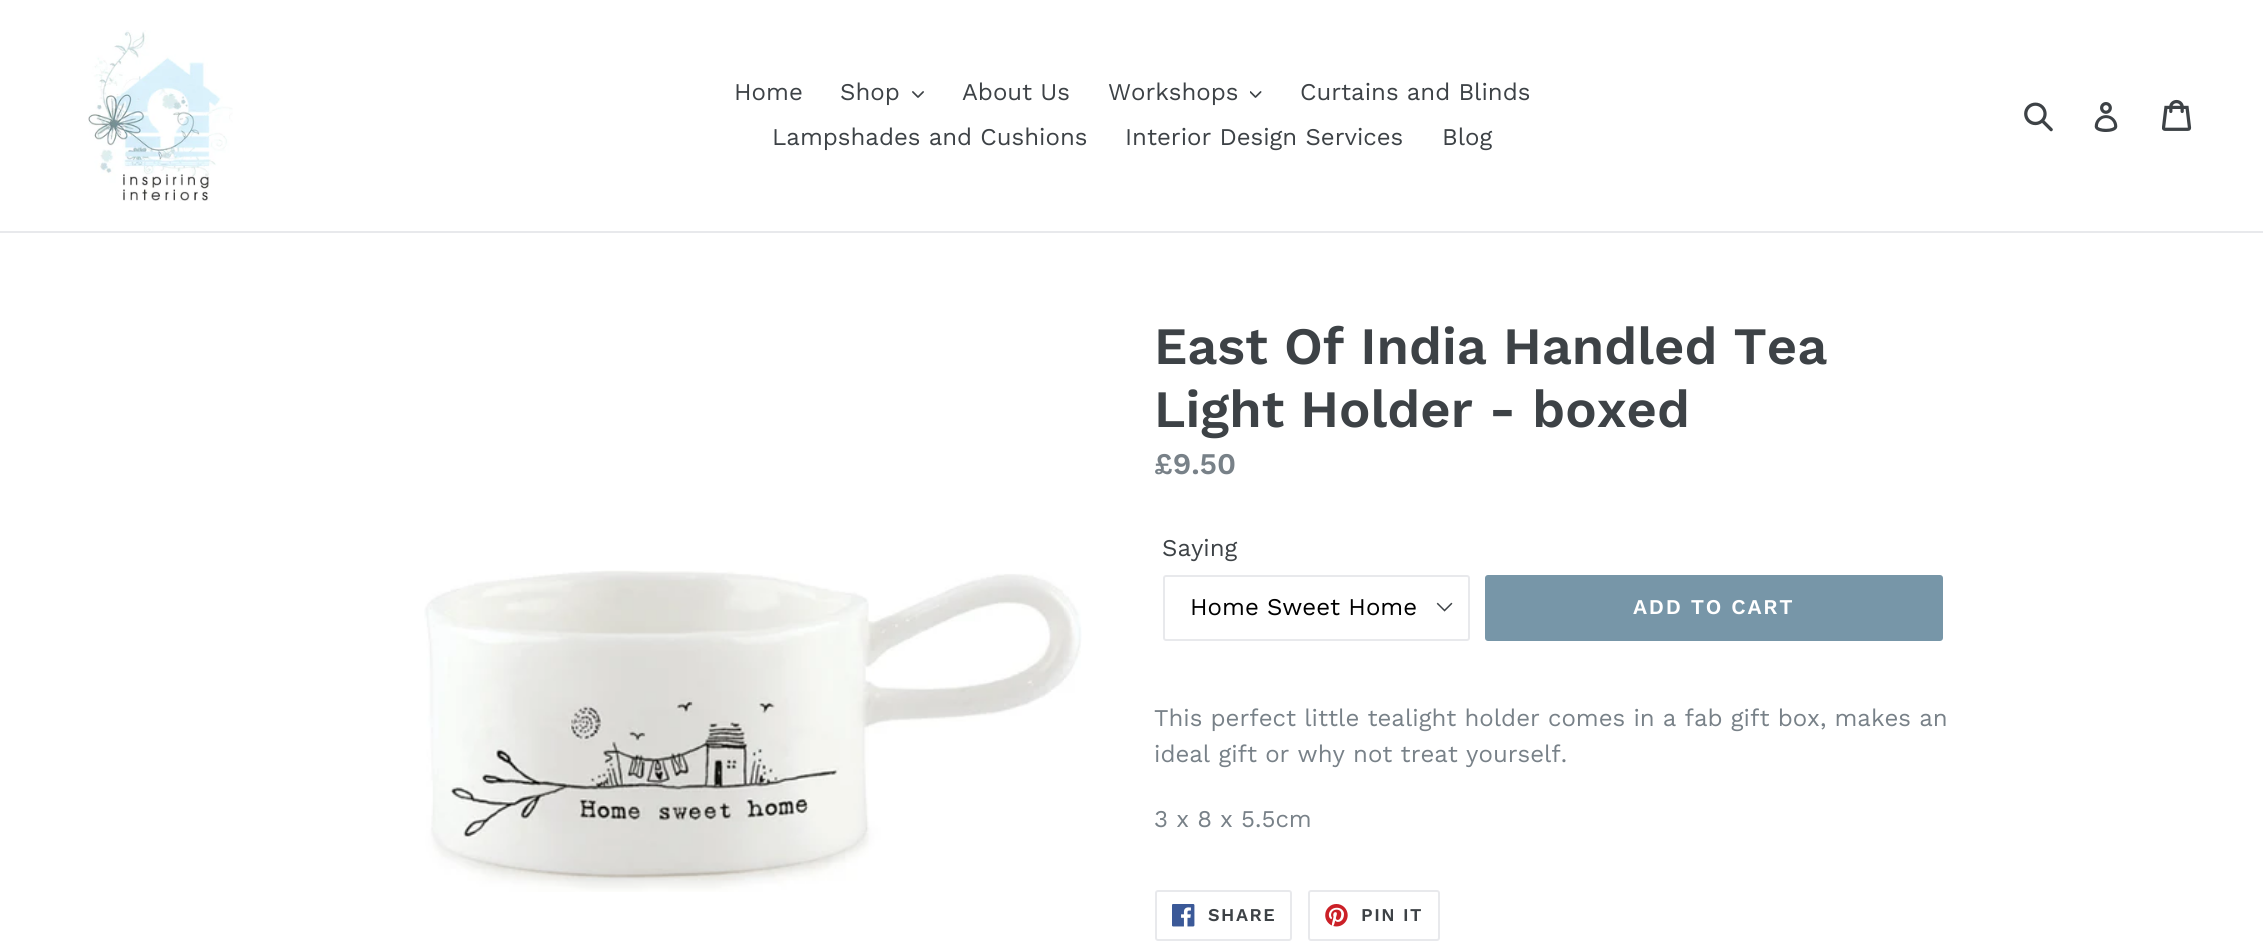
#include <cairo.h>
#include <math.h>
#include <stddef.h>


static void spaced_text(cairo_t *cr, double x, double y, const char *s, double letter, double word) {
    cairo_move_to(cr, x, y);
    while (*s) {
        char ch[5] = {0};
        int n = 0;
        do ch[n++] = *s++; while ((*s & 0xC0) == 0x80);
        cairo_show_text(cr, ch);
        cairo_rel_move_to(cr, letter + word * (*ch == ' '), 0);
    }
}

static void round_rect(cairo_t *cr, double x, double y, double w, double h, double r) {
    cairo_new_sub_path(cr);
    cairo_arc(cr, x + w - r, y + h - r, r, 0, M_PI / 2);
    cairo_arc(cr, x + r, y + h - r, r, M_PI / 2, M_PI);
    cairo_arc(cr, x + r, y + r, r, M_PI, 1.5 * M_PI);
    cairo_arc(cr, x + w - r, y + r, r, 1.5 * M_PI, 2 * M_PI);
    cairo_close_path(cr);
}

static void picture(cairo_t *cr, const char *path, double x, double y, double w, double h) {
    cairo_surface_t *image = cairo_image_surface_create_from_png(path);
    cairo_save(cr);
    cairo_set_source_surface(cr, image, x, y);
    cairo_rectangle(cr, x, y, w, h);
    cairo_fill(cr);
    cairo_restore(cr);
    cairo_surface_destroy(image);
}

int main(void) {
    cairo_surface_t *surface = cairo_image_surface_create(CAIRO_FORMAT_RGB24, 2263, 941);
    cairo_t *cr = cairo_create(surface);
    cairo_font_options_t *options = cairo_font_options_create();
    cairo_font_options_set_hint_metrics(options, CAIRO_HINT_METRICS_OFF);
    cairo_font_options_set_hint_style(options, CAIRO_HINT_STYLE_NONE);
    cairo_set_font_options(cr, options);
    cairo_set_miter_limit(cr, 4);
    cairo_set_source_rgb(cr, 1, 1, 1);
    cairo_paint(cr);
    cairo_set_source_rgb(cr, 0.91, 0.914, 0.922);
    cairo_rectangle(cr, 0, 231, 2263, 2);
    cairo_fill(cr);
    picture(cr, "img1.png", 88, 30, 145, 171);
    cairo_select_font_face(cr, "Work Sans", CAIRO_FONT_SLANT_NORMAL, CAIRO_FONT_WEIGHT_NORMAL);
    cairo_set_font_size(cr, 24);
    cairo_set_source_rgb(cr, 0.239, 0.259, 0.275);
    cairo_move_to(cr, 734, 100);
    cairo_show_text(cr, "Home");
    cairo_move_to(cr, 840, 100);
    cairo_show_text(cr, "Shop");
    picture(cr, "img2.png", 912, 91, 12, 7);
    cairo_move_to(cr, 962, 100);
    cairo_show_text(cr, "About Us");
    cairo_move_to(cr, 1108, 100);
    cairo_show_text(cr, "Workshops");
    picture(cr, "img3.png", 1250, 91, 12, 7);
    cairo_move_to(cr, 1300, 100);
    cairo_show_text(cr, "Curtains and Blinds");
    cairo_move_to(cr, 772, 145);
    cairo_show_text(cr, "Lampshades and Cushions");
    cairo_move_to(cr, 1125, 145);
    cairo_show_text(cr, "Interior Design Services");
    cairo_move_to(cr, 1442, 145);
    cairo_show_text(cr, "Blog");
    picture(cr, "img4.png", 2024, 102, 29, 30);
    picture(cr, "img5.png", 2094, 102, 24, 30);
    picture(cr, "img6.png", 2162, 99, 30, 32);
    picture(cr, "img7.png", 424, 570, 658, 322);
    cairo_select_font_face(cr, "Work Sans SemiBold", CAIRO_FONT_SLANT_NORMAL, CAIRO_FONT_WEIGHT_NORMAL);
    cairo_set_font_size(cr, 52.5);
    cairo_move_to(cr, 1154, 364);
    cairo_show_text(cr, "East Of India Handled Tea");
    cairo_move_to(cr, 1154, 427);
    cairo_show_text(cr, "Light Holder - boxed");
    cairo_set_font_size(cr, 30);
    cairo_set_source_rgb(cr, 0.471, 0.506, 0.533);
    cairo_move_to(cr, 1154, 474);
    cairo_show_text(cr, "£9.50");
    cairo_select_font_face(cr, "Work Sans", CAIRO_FONT_SLANT_NORMAL, CAIRO_FONT_WEIGHT_NORMAL);
    cairo_set_font_size(cr, 24);
    cairo_set_source_rgb(cr, 0.239, 0.259, 0.275);
    cairo_move_to(cr, 1162, 556);
    cairo_show_text(cr, "Saying");
    picture(cr, "img8.png", 1436, 602, 17, 10);
    round_rect(cr, 1164, 576, 305, 64, 2);
    cairo_set_source_rgb(cr, 0.91, 0.914, 0.922);
    cairo_stroke(cr);
    cairo_set_source_rgb(cr, 0, 0, 0);
    cairo_move_to(cr, 1190, 615);
    cairo_show_text(cr, "Home Sweet Home");
    cairo_set_source_rgb(cr, 0.467, 0.588, 0.659);
    round_rect(cr, 1485, 575, 458, 66, 3);
    cairo_fill(cr);
    cairo_select_font_face(cr, "Work Sans SemiBold", CAIRO_FONT_SLANT_NORMAL, CAIRO_FONT_WEIGHT_NORMAL);
    cairo_set_font_size(cr, 21);
    cairo_set_source_rgb(cr, 1, 1, 1);
    spaced_text(cr, 1633, 614, "ADD TO CART", 1.75, 0);
    cairo_select_font_face(cr, "Work Sans", CAIRO_FONT_SLANT_NORMAL, CAIRO_FONT_WEIGHT_NORMAL);
    cairo_set_font_size(cr, 24);
    cairo_set_source_rgb(cr, 0.471, 0.506, 0.533);
    cairo_move_to(cr, 1154, 726);
    cairo_show_text(cr, "This perfect little tealight holder comes in a fab gift box, makes an");
    cairo_move_to(cr, 1154, 762);
    cairo_show_text(cr, "ideal gift or why not treat yourself.");
    cairo_move_to(cr, 1154, 827);
    cairo_show_text(cr, "3 x 8 x 5.5cm");
    round_rect(cr, 1156, 891, 135, 49, 2);
    cairo_set_source_rgb(cr, 0.91, 0.914, 0.922);
    cairo_stroke(cr);
    picture(cr, "img9.png", 1172, 904, 23, 23);
    cairo_select_font_face(cr, "Work Sans SemiBold", CAIRO_FONT_SLANT_NORMAL, CAIRO_FONT_WEIGHT_NORMAL);
    cairo_set_font_size(cr, 18);
    cairo_set_source_rgb(cr, 0.239, 0.259, 0.275);
    spaced_text(cr, 1208, 921, "SHARE", 1.5, 0);
    round_rect(cr, 1309, 891, 130, 49, 2);
    cairo_set_source_rgb(cr, 0.91, 0.914, 0.922);
    cairo_stroke(cr);
    picture(cr, "img10.png", 1325, 904, 23, 23);
    cairo_set_source_rgb(cr, 0.239, 0.259, 0.275);
    spaced_text(cr, 1361, 921, "PIN IT", 1.5, 0);
    cairo_surface_write_to_png(surface, "page.png");
    cairo_font_options_destroy(options);
    cairo_destroy(cr);
    cairo_surface_destroy(surface);
    return 0;
}
